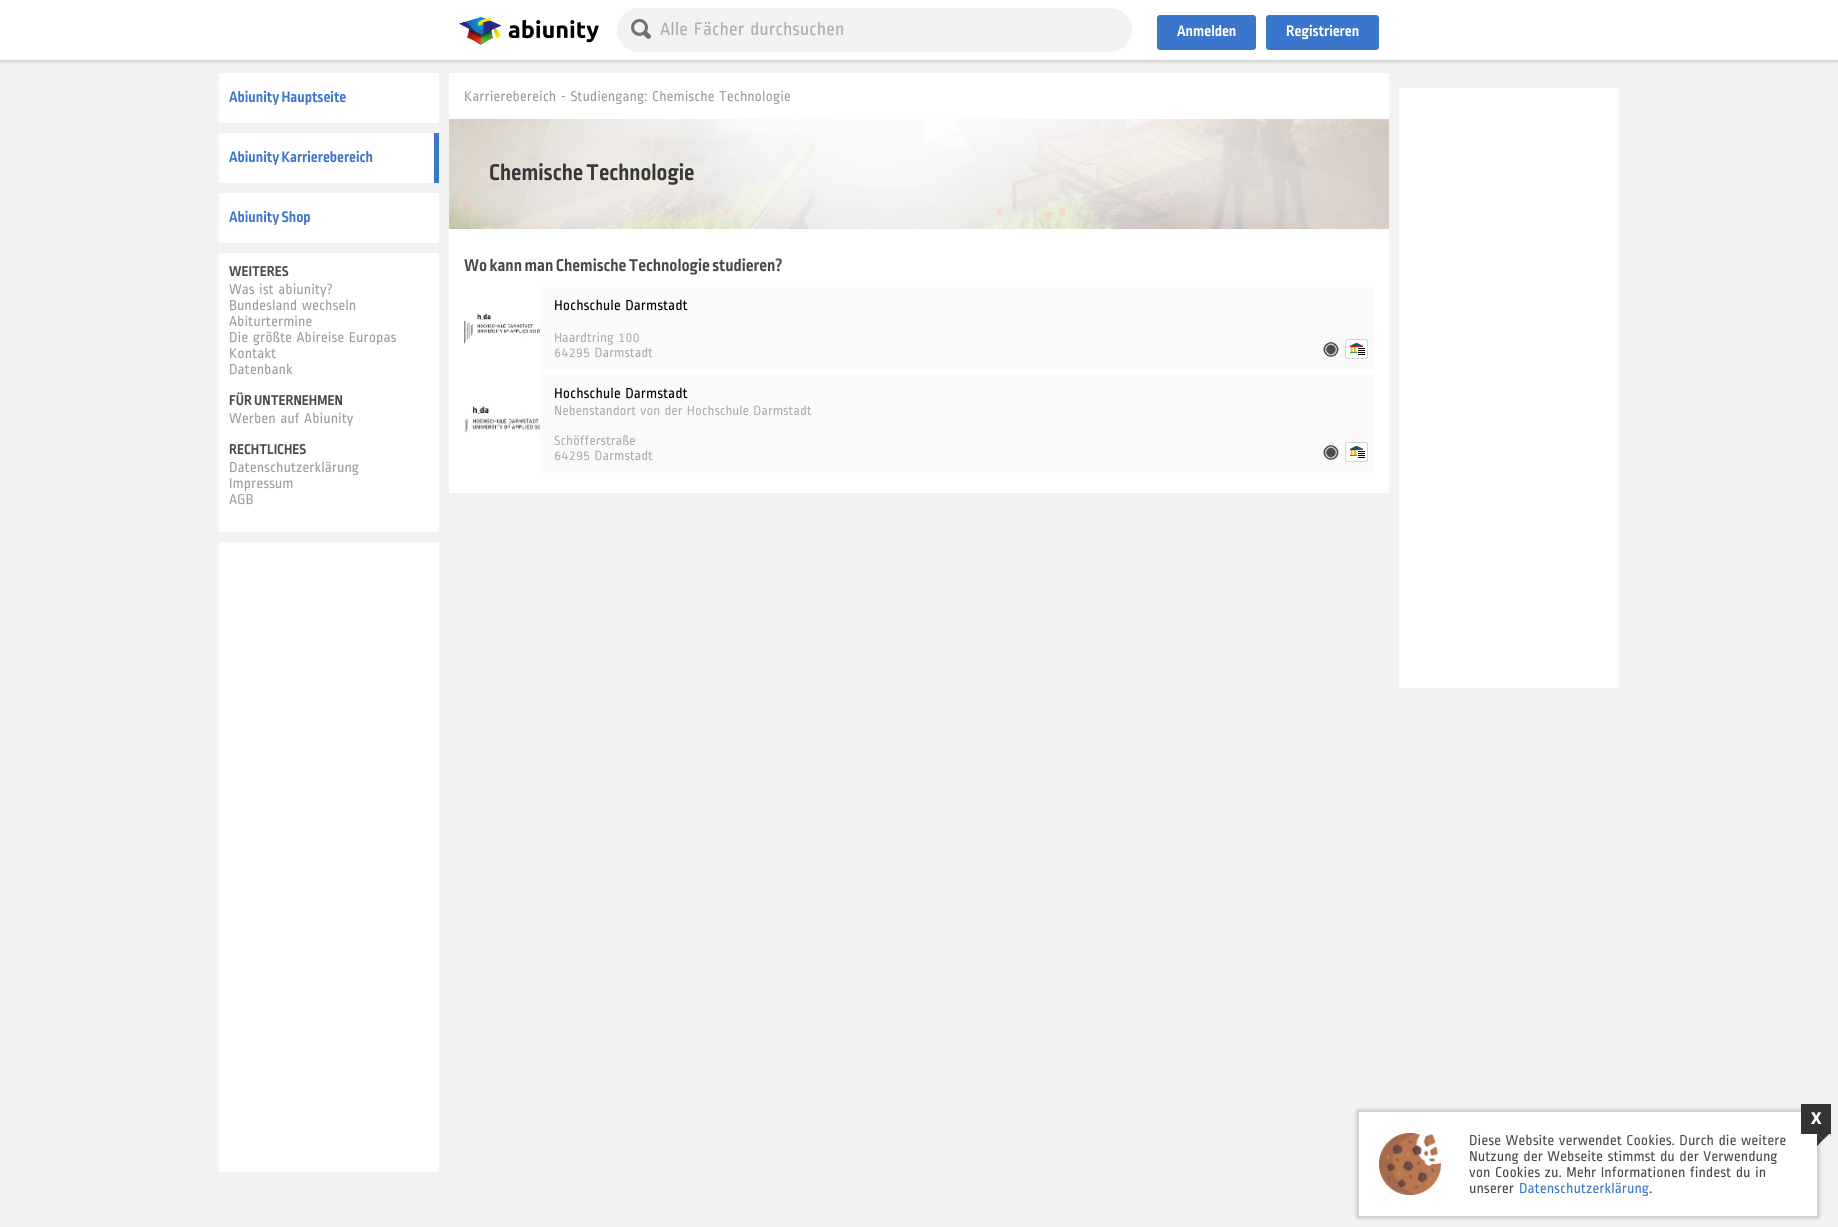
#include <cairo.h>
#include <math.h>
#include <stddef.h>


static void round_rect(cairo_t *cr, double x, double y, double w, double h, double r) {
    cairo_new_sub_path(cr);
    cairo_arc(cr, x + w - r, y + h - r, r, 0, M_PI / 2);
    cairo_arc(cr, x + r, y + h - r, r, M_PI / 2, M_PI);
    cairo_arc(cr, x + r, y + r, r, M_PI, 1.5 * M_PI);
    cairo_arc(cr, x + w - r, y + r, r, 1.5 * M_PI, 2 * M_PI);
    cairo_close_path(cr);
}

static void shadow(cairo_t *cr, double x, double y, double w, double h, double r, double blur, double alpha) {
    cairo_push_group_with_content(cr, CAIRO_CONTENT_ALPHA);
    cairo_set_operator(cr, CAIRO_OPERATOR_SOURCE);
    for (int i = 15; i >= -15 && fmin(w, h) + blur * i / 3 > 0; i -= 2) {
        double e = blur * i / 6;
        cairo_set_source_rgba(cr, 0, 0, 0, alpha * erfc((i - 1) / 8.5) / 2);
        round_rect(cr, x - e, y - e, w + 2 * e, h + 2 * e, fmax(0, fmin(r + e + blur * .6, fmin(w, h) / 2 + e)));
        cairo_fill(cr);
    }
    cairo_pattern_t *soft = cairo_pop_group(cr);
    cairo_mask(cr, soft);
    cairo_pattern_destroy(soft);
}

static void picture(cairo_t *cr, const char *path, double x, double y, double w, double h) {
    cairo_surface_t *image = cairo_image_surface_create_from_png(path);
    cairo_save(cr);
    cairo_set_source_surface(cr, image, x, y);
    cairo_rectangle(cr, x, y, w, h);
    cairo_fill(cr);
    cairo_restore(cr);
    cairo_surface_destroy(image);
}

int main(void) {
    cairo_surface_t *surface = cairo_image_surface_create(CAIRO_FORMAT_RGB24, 1838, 1227);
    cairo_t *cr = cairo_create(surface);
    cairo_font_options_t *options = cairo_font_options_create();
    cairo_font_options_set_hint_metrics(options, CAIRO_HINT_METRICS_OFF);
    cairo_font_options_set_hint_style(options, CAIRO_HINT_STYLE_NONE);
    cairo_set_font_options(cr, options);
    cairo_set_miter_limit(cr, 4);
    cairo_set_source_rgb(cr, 0.949, 0.949, 0.949);
    cairo_paint(cr);
    cairo_set_source_rgb(cr, 1, 1, 1);
    cairo_rectangle(cr, 219, 73, 220, 50);
    cairo_fill(cr);
    cairo_select_font_face(cr, "Ropa Sans", CAIRO_FONT_SLANT_NORMAL, CAIRO_FONT_WEIGHT_BOLD);
    cairo_set_font_size(cr, 16);
    cairo_set_source_rgb(cr, 0.231, 0.463, 0.804);
    cairo_move_to(cr, 229, 102);
    cairo_show_text(cr, "Abiunity Hauptseite");
    cairo_set_source_rgb(cr, 1, 1, 1);
    cairo_rectangle(cr, 219, 133, 215, 50);
    cairo_fill(cr);
    cairo_set_source_rgb(cr, 0.231, 0.463, 0.804);
    cairo_move_to(cr, 229, 162);
    cairo_show_text(cr, "Abiunity Karrierebereich");
    cairo_rectangle(cr, 434, 133, 5, 50);
    cairo_fill(cr);
    cairo_set_source_rgb(cr, 1, 1, 1);
    cairo_rectangle(cr, 219, 193, 220, 50);
    cairo_fill(cr);
    cairo_set_source_rgb(cr, 0.231, 0.463, 0.804);
    cairo_move_to(cr, 229, 222);
    cairo_show_text(cr, "Abiunity Shop");
    cairo_set_source_rgb(cr, 1, 1, 1);
    cairo_rectangle(cr, 219, 253, 220, 279);
    cairo_fill(cr);
    cairo_set_font_size(cr, 15);
    cairo_set_source_rgb(cr, 0.286, 0.286, 0.286);
    cairo_move_to(cr, 229, 276);
    cairo_show_text(cr, "WEITERES");
    cairo_select_font_face(cr, "Ropa Sans", CAIRO_FONT_SLANT_NORMAL, CAIRO_FONT_WEIGHT_NORMAL);
    cairo_set_source_rgb(cr, 0.612, 0.612, 0.612);
    cairo_move_to(cr, 229, 294);
    cairo_show_text(cr, "Was ist abiunity?");
    cairo_move_to(cr, 229, 310);
    cairo_show_text(cr, "Bundesland wechseln");
    cairo_move_to(cr, 229, 326);
    cairo_show_text(cr, "Abiturtermine");
    cairo_move_to(cr, 229, 342);
    cairo_show_text(cr, "Die größte Abireise Europas");
    cairo_move_to(cr, 229, 358);
    cairo_show_text(cr, "Kontakt");
    cairo_move_to(cr, 229, 374);
    cairo_show_text(cr, "Datenbank");
    cairo_select_font_face(cr, "Ropa Sans", CAIRO_FONT_SLANT_NORMAL, CAIRO_FONT_WEIGHT_BOLD);
    cairo_set_source_rgb(cr, 0.286, 0.286, 0.286);
    cairo_move_to(cr, 229, 405);
    cairo_show_text(cr, "FÜR UNTERNEHMEN");
    cairo_select_font_face(cr, "Ropa Sans", CAIRO_FONT_SLANT_NORMAL, CAIRO_FONT_WEIGHT_NORMAL);
    cairo_set_source_rgb(cr, 0.612, 0.612, 0.612);
    cairo_move_to(cr, 229, 423);
    cairo_show_text(cr, "Werben auf Abiunity");
    cairo_select_font_face(cr, "Ropa Sans", CAIRO_FONT_SLANT_NORMAL, CAIRO_FONT_WEIGHT_BOLD);
    cairo_set_source_rgb(cr, 0.286, 0.286, 0.286);
    cairo_move_to(cr, 229, 454);
    cairo_show_text(cr, "RECHTLICHES");
    cairo_select_font_face(cr, "Ropa Sans", CAIRO_FONT_SLANT_NORMAL, CAIRO_FONT_WEIGHT_NORMAL);
    cairo_set_source_rgb(cr, 0.612, 0.612, 0.612);
    cairo_move_to(cr, 229, 472);
    cairo_show_text(cr, "Datenschutzerklärung");
    cairo_move_to(cr, 229, 488);
    cairo_show_text(cr, "Impressum");
    cairo_move_to(cr, 229, 504);
    cairo_show_text(cr, "AGB");
    cairo_set_source_rgb(cr, 1, 1, 1);
    cairo_rectangle(cr, 219, 542, 220, 630);
    cairo_fill(cr);
    cairo_set_source_rgb(cr, 0, 0, 0);
    shadow(cr, 0, 0, 1838, 60, 0, 2.5, 0.3);
    cairo_set_source_rgb(cr, 1, 1, 1);
    cairo_rectangle(cr, 0, 0, 1838, 60);
    cairo_fill(cr);
    picture(cr, "img1.png", 459, 17, 140, 28);
    cairo_set_source_rgb(cr, 0.949, 0.949, 0.949);
    round_rect(cr, 617, 8, 515, 44, 22);
    cairo_fill(cr);
    picture(cr, "img2.png", 631, 19, 20, 20);
    cairo_set_font_size(cr, 19);
    cairo_set_source_rgb(cr, 0.678, 0.678, 0.678);
    cairo_move_to(cr, 660, 35);
    cairo_show_text(cr, "Alle Fächer durchsuchen");
    cairo_set_source_rgb(cr, 0.231, 0.463, 0.804);
    round_rect(cr, 1157, 15, 99, 35, 3);
    cairo_fill(cr);
    cairo_select_font_face(cr, "Ropa Sans", CAIRO_FONT_SLANT_NORMAL, CAIRO_FONT_WEIGHT_BOLD);
    cairo_set_font_size(cr, 16);
    cairo_set_source_rgb(cr, 1, 1, 1);
    cairo_move_to(cr, 1177, 36);
    cairo_show_text(cr, "Anmelden");
    cairo_set_source_rgb(cr, 0.231, 0.463, 0.804);
    round_rect(cr, 1266, 15, 113, 35, 3);
    cairo_fill(cr);
    cairo_set_source_rgb(cr, 1, 1, 1);
    cairo_move_to(cr, 1286, 36);
    cairo_show_text(cr, "Registrieren");
    cairo_rectangle(cr, 449, 73, 940, 420);
    cairo_fill(cr);
    cairo_select_font_face(cr, "Ropa Sans", CAIRO_FONT_SLANT_NORMAL, CAIRO_FONT_WEIGHT_NORMAL);
    cairo_set_font_size(cr, 15);
    cairo_set_source_rgb(cr, 0.612, 0.612, 0.612);
    cairo_move_to(cr, 464, 101);
    cairo_show_text(cr, "Karrierebereich - Studiengang: Chemische Technologie");
    picture(cr, "img3.png", 449, 119, 940, 110);
    picture(cr, "img4.png", 449, 119, 940, 110);
    cairo_select_font_face(cr, "Ropa Sans", CAIRO_FONT_SLANT_NORMAL, CAIRO_FONT_WEIGHT_BOLD);
    cairo_set_font_size(cr, 24);
    cairo_set_source_rgb(cr, 0.22, 0.22, 0.22);
    cairo_move_to(cr, 489, 180);
    cairo_show_text(cr, "Chemische Technologie");
    cairo_set_font_size(cr, 18);
    cairo_set_source_rgb(cr, 0.286, 0.286, 0.286);
    cairo_move_to(cr, 464, 271);
    cairo_show_text(cr, "Wo kann man Chemische Technologie studieren?");
    cairo_set_source_rgb(cr, 0.98, 0.98, 0.98);
    cairo_rectangle(cr, 540, 287, 834, 83);
    cairo_fill(cr);
    cairo_select_font_face(cr, "Ropa Sans", CAIRO_FONT_SLANT_NORMAL, CAIRO_FONT_WEIGHT_NORMAL);
    cairo_set_font_size(cr, 15);
    cairo_set_source_rgb(cr, 0, 0, 0);
    cairo_move_to(cr, 554, 310);
    cairo_show_text(cr, "Hochschule Darmstadt");
    picture(cr, "img5.png", 464, 313, 76, 31);
    cairo_set_font_size(cr, 14);
    cairo_set_source_rgb(cr, 0.678, 0.678, 0.678);
    cairo_move_to(cr, 554, 342);
    cairo_show_text(cr, "Haardtring 100");
    cairo_move_to(cr, 554, 357);
    cairo_show_text(cr, "64295 Darmstadt");
    picture(cr, "img6.png", 1323, 342, 16, 15);
    picture(cr, "img7.png", 1345, 339, 23, 20);
    cairo_set_source_rgb(cr, 0.98, 0.98, 0.98);
    cairo_rectangle(cr, 540, 375, 834, 98);
    cairo_fill(cr);
    cairo_set_font_size(cr, 15);
    cairo_set_source_rgb(cr, 0, 0, 0);
    cairo_move_to(cr, 554, 398);
    cairo_show_text(cr, "Hochschule Darmstadt");
    picture(cr, "img8.png", 464, 406, 76, 27);
    cairo_set_font_size(cr, 14);
    cairo_set_source_rgb(cr, 0.678, 0.678, 0.678);
    cairo_move_to(cr, 554, 415);
    cairo_show_text(cr, "Nebenstandort von der Hochschule Darmstadt");
    cairo_move_to(cr, 554, 445);
    cairo_show_text(cr, "Schöfferstraße");
    cairo_move_to(cr, 554, 460);
    cairo_show_text(cr, "64295 Darmstadt");
    picture(cr, "img6.png", 1323, 445, 16, 15);
    picture(cr, "img7.png", 1345, 442, 23, 20);
    cairo_set_source_rgb(cr, 1, 1, 1);
    cairo_rectangle(cr, 1399, 88, 220, 600);
    cairo_fill(cr);
    cairo_set_source_rgb(cr, 0, 0, 0);
    shadow(cr, 1358, 1111, 460, 106, 0, 2.5, 0.3);
    cairo_set_source_rgb(cr, 1, 1, 1);
    cairo_rectangle(cr, 1359, 1112, 458, 104);
    cairo_fill(cr);
    picture(cr, "img9.png", 1379, 1133, 62, 62);
    cairo_rectangle(cr, 1358.5, 1111.5, 459, 105);
    cairo_set_source_rgb(cr, 0.8, 0.8, 0.8);
    cairo_set_line_width(cr, 1);
    cairo_stroke(cr);
    cairo_set_source_rgb(cr, 0.2, 0.2, 0.2);
    cairo_rectangle(cr, 1801, 1104, 30, 30);
    cairo_fill(cr);
    cairo_select_font_face(cr, "Ropa Sans", CAIRO_FONT_SLANT_NORMAL, CAIRO_FONT_WEIGHT_BOLD);
    cairo_set_font_size(cr, 24);
    cairo_set_source_rgb(cr, 1, 1, 1);
    cairo_move_to(cr, 1811, 1124);
    cairo_show_text(cr, "x");
    cairo_set_source_rgb(cr, 0.2, 0.2, 0.2);
    cairo_new_path(cr);
    cairo_move_to(cr, 1817, 1134);
    cairo_line_to(cr, 1829, 1134);
    cairo_line_to(cr, 1823, 1140);
    cairo_close_path(cr);
    cairo_fill(cr);
    cairo_new_path(cr);
    cairo_move_to(cr, 1817, 1146);
    cairo_line_to(cr, 1817, 1134);
    cairo_line_to(cr, 1823, 1140);
    cairo_close_path(cr);
    cairo_fill(cr);
    cairo_select_font_face(cr, "Ropa Sans", CAIRO_FONT_SLANT_NORMAL, CAIRO_FONT_WEIGHT_NORMAL);
    cairo_set_font_size(cr, 15);
    cairo_set_source_rgb(cr, 0.286, 0.286, 0.286);
    cairo_move_to(cr, 1469, 1145);
    cairo_show_text(cr, "Diese Website verwendet Cookies. Durch die weitere");
    cairo_move_to(cr, 1469, 1161);
    cairo_show_text(cr, "Nutzung der Webseite stimmst du der Verwendung");
    cairo_move_to(cr, 1469, 1177);
    cairo_show_text(cr, "von Cookies zu. Mehr Informationen findest du in");
    cairo_move_to(cr, 1469, 1193);
    cairo_show_text(cr, "unserer");
    cairo_set_source_rgb(cr, 0.231, 0.463, 0.804);
    cairo_move_to(cr, 1519, 1193);
    cairo_show_text(cr, "Datenschutzerklärung");
    cairo_set_source_rgb(cr, 0.286, 0.286, 0.286);
    cairo_move_to(cr, 1649, 1193);
    cairo_show_text(cr, ".");
    cairo_surface_write_to_png(surface, "page.png");
    cairo_font_options_destroy(options);
    cairo_destroy(cr);
    cairo_surface_destroy(surface);
    return 0;
}
